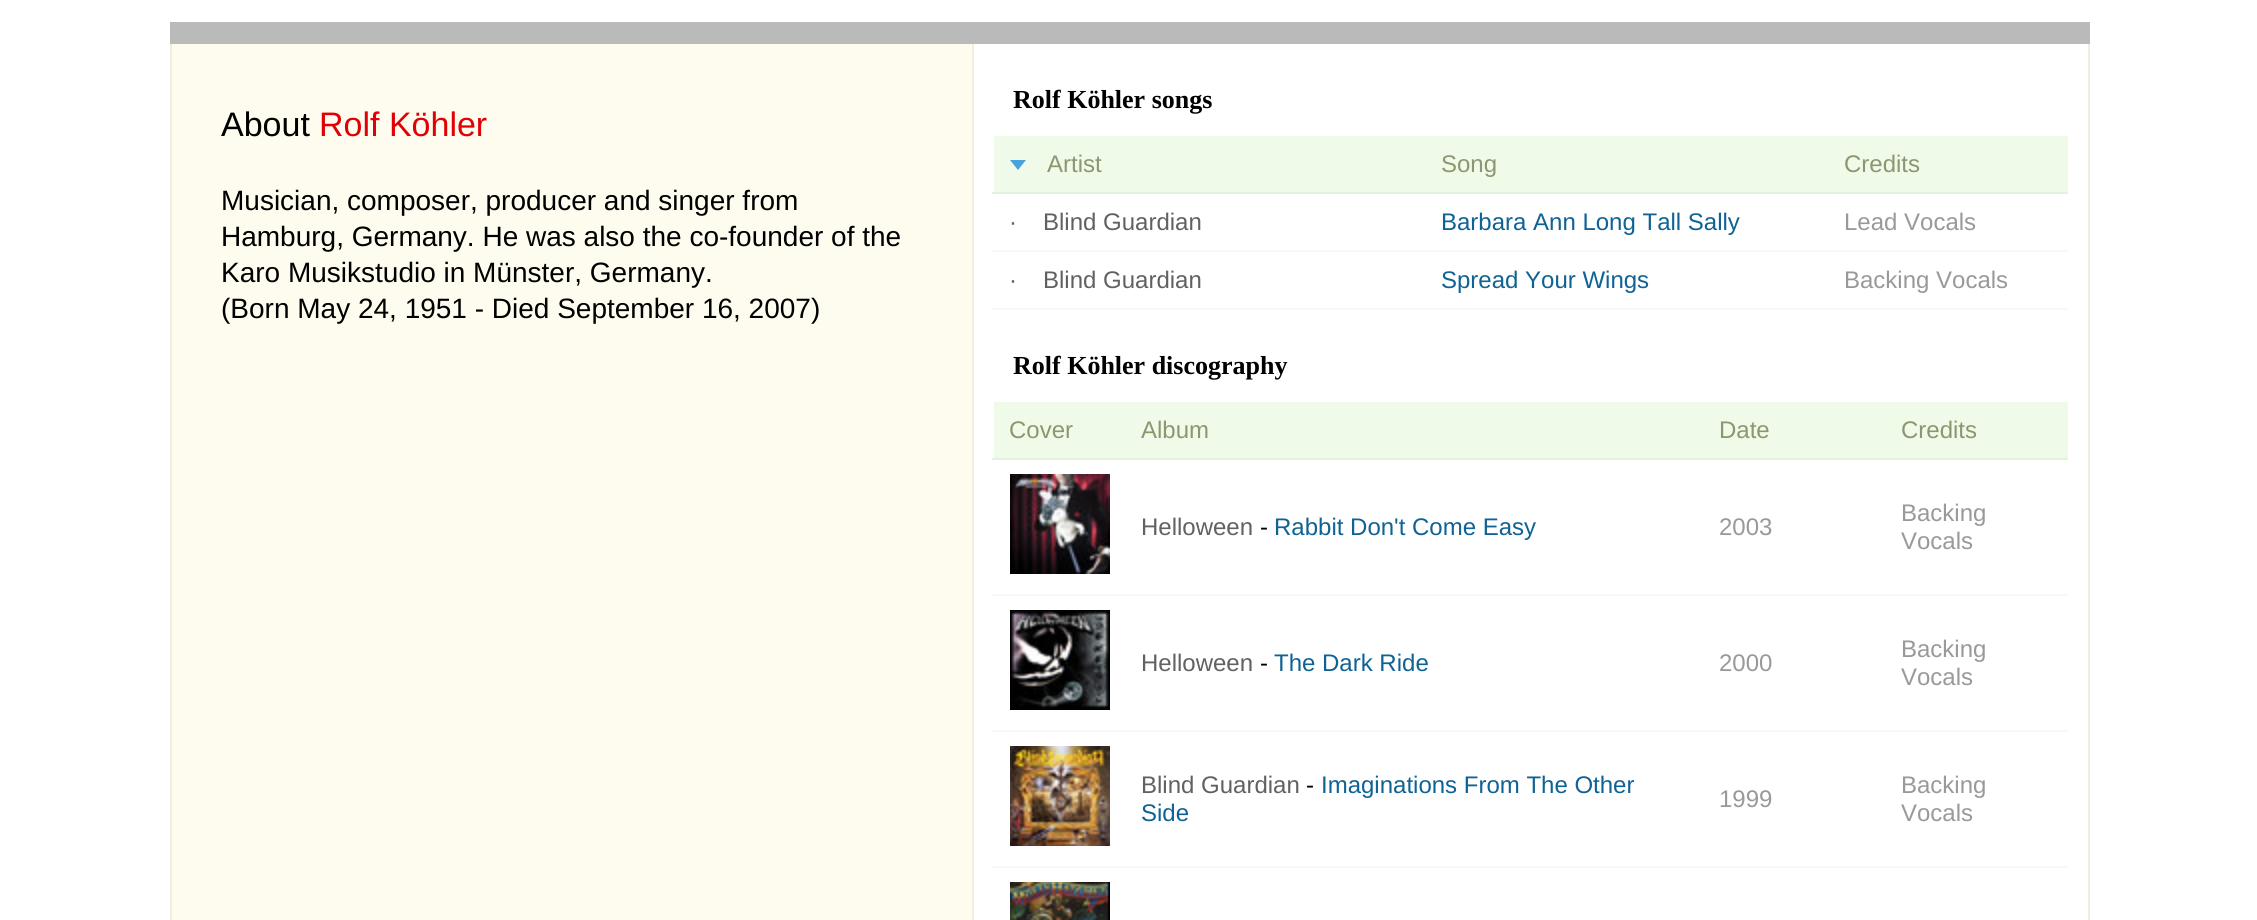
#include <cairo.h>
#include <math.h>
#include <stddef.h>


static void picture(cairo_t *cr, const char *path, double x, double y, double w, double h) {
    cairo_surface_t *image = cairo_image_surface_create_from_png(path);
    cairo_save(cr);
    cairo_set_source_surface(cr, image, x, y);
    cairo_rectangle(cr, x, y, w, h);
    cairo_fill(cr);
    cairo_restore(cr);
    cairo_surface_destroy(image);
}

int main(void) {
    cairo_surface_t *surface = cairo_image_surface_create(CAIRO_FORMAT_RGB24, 2257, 920);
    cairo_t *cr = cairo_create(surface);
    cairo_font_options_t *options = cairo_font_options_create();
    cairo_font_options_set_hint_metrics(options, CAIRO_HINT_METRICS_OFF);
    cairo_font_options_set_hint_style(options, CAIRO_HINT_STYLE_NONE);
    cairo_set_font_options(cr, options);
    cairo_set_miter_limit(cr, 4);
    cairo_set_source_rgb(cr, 1, 1, 1);
    cairo_paint(cr);
    cairo_set_source_rgb(cr, 0.729, 0.729, 0.729);
    cairo_rectangle(cr, 170, 22, 1920, 22);
    cairo_fill(cr);
    cairo_set_source_rgb(cr, 0.941, 0.937, 0.859);
    cairo_rectangle(cr, 2088, 44, 2, 876);
    cairo_fill(cr);
    cairo_rectangle(cr, 170, 44, 2, 876);
    cairo_fill(cr);
    cairo_set_source_rgb(cr, 0.992, 0.988, 0.933);
    cairo_rectangle(cr, 172, 44, 800, 876);
    cairo_fill(cr);
    cairo_set_source_rgb(cr, 0.941, 0.937, 0.859);
    cairo_rectangle(cr, 972, 44, 2, 876);
    cairo_fill(cr);
    cairo_select_font_face(cr, "Liberation Sans", CAIRO_FONT_SLANT_NORMAL, CAIRO_FONT_WEIGHT_NORMAL);
    cairo_set_font_size(cr, 34);
    cairo_set_source_rgb(cr, 0, 0, 0);
    cairo_move_to(cr, 221, 136);
    cairo_show_text(cr, "About");
    cairo_set_source_rgb(cr, 0.878, 0.004, 0.027);
    cairo_move_to(cr, 319, 136);
    cairo_show_text(cr, "Rolf Köhler");
    cairo_set_font_size(cr, 28);
    cairo_set_source_rgb(cr, 0, 0, 0);
    cairo_move_to(cr, 221, 210);
    cairo_show_text(cr, "Musician, composer, producer and singer from");
    cairo_move_to(cr, 221, 246);
    cairo_show_text(cr, "Hamburg, Germany. He was also the co-founder of the");
    cairo_move_to(cr, 221, 282);
    cairo_show_text(cr, "Karo Musikstudio in Münster, Germany.");
    cairo_move_to(cr, 221, 318);
    cairo_show_text(cr, "(Born May 24, 1951 - Died September 16, 2007)");
    cairo_select_font_face(cr, "Liberation Serif", CAIRO_FONT_SLANT_NORMAL, CAIRO_FONT_WEIGHT_BOLD);
    cairo_set_font_size(cr, 26);
    cairo_move_to(cr, 1013, 108);
    cairo_show_text(cr, "Rolf Köhler songs");
    cairo_set_source_rgb(cr, 0.941, 0.98, 0.914);
    cairo_rectangle(cr, 994, 136, 1074, 56);
    cairo_fill(cr);
    cairo_set_source_rgb(cr, 0.89, 0.949, 0.855);
    cairo_rectangle(cr, 992, 192, 1076, 2);
    cairo_fill(cr);
    cairo_set_source_rgb(cr, 0.282, 0.635, 0.867);
    cairo_new_path(cr);
    cairo_move_to(cr, 1010, 160);
    cairo_line_to(cr, 1026, 160);
    cairo_line_to(cr, 1018, 170);
    cairo_close_path(cr);
    cairo_fill(cr);
    cairo_select_font_face(cr, "Liberation Sans", CAIRO_FONT_SLANT_NORMAL, CAIRO_FONT_WEIGHT_NORMAL);
    cairo_set_font_size(cr, 24);
    cairo_set_source_rgb(cr, 0.541, 0.592, 0.435);
    cairo_move_to(cr, 1047, 172);
    cairo_show_text(cr, "Artist");
    cairo_move_to(cr, 1441, 172);
    cairo_show_text(cr, "Song");
    cairo_move_to(cr, 1844, 172);
    cairo_show_text(cr, "Credits");
    cairo_set_source_rgb(cr, 0.961, 0.969, 0.973);
    cairo_rectangle(cr, 992, 250, 1076, 2);
    cairo_fill(cr);
    cairo_set_source_rgb(cr, 0.38, 0.38, 0.38);
    cairo_move_to(cr, 1009, 230);
    cairo_show_text(cr, "·");
    cairo_move_to(cr, 1043, 230);
    cairo_show_text(cr, "Blind Guardian");
    cairo_set_source_rgb(cr, 0.059, 0.384, 0.58);
    cairo_move_to(cr, 1441, 230);
    cairo_show_text(cr, "Barbara Ann Long Tall Sally");
    cairo_set_source_rgb(cr, 0.6, 0.6, 0.6);
    cairo_move_to(cr, 1844, 230);
    cairo_show_text(cr, "Lead Vocals");
    cairo_set_source_rgb(cr, 0.961, 0.969, 0.973);
    cairo_rectangle(cr, 992, 308, 1076, 2);
    cairo_fill(cr);
    cairo_set_source_rgb(cr, 0.38, 0.38, 0.38);
    cairo_move_to(cr, 1009, 288);
    cairo_show_text(cr, "·");
    cairo_move_to(cr, 1043, 288);
    cairo_show_text(cr, "Blind Guardian");
    cairo_set_source_rgb(cr, 0.059, 0.384, 0.58);
    cairo_move_to(cr, 1441, 288);
    cairo_show_text(cr, "Spread Your Wings");
    cairo_set_source_rgb(cr, 0.6, 0.6, 0.6);
    cairo_move_to(cr, 1844, 288);
    cairo_show_text(cr, "Backing Vocals");
    cairo_select_font_face(cr, "Liberation Serif", CAIRO_FONT_SLANT_NORMAL, CAIRO_FONT_WEIGHT_BOLD);
    cairo_set_font_size(cr, 26);
    cairo_set_source_rgb(cr, 0, 0, 0);
    cairo_move_to(cr, 1013, 374);
    cairo_show_text(cr, "Rolf Köhler discography");
    cairo_set_source_rgb(cr, 0.941, 0.98, 0.914);
    cairo_rectangle(cr, 994, 402, 1074, 56);
    cairo_fill(cr);
    cairo_set_source_rgb(cr, 0.89, 0.949, 0.855);
    cairo_rectangle(cr, 992, 458, 1076, 2);
    cairo_fill(cr);
    cairo_select_font_face(cr, "Liberation Sans", CAIRO_FONT_SLANT_NORMAL, CAIRO_FONT_WEIGHT_NORMAL);
    cairo_set_font_size(cr, 24);
    cairo_set_source_rgb(cr, 0.541, 0.592, 0.435);
    cairo_move_to(cr, 1009, 438);
    cairo_show_text(cr, "Cover");
    cairo_move_to(cr, 1141, 438);
    cairo_show_text(cr, "Album");
    cairo_move_to(cr, 1719, 438);
    cairo_show_text(cr, "Date");
    cairo_move_to(cr, 1901, 438);
    cairo_show_text(cr, "Credits");
    cairo_set_source_rgb(cr, 0.961, 0.969, 0.973);
    cairo_rectangle(cr, 992, 594, 1076, 2);
    cairo_fill(cr);
    picture(cr, "img1.png", 1010, 474, 100, 100);
    cairo_set_source_rgb(cr, 0.38, 0.38, 0.38);
    cairo_move_to(cr, 1141, 535);
    cairo_show_text(cr, "Helloween");
    cairo_set_source_rgb(cr, 0, 0, 0);
    cairo_move_to(cr, 1260, 535);
    cairo_show_text(cr, "-");
    cairo_set_source_rgb(cr, 0.059, 0.384, 0.58);
    cairo_move_to(cr, 1274, 535);
    cairo_show_text(cr, "Rabbit Don't Come Easy");
    cairo_set_source_rgb(cr, 0.6, 0.6, 0.6);
    cairo_move_to(cr, 1719, 535);
    cairo_show_text(cr, "2003");
    cairo_move_to(cr, 1901, 521);
    cairo_show_text(cr, "Backing");
    cairo_move_to(cr, 1901, 549);
    cairo_show_text(cr, "Vocals");
    cairo_set_source_rgb(cr, 0.961, 0.969, 0.973);
    cairo_rectangle(cr, 992, 730, 1076, 2);
    cairo_fill(cr);
    picture(cr, "img2.png", 1010, 610, 100, 100);
    cairo_set_source_rgb(cr, 0.38, 0.38, 0.38);
    cairo_move_to(cr, 1141, 671);
    cairo_show_text(cr, "Helloween");
    cairo_set_source_rgb(cr, 0, 0, 0);
    cairo_move_to(cr, 1260, 671);
    cairo_show_text(cr, "-");
    cairo_set_source_rgb(cr, 0.059, 0.384, 0.58);
    cairo_move_to(cr, 1274, 671);
    cairo_show_text(cr, "The Dark Ride");
    cairo_set_source_rgb(cr, 0.6, 0.6, 0.6);
    cairo_move_to(cr, 1719, 671);
    cairo_show_text(cr, "2000");
    cairo_move_to(cr, 1901, 657);
    cairo_show_text(cr, "Backing");
    cairo_move_to(cr, 1901, 685);
    cairo_show_text(cr, "Vocals");
    cairo_set_source_rgb(cr, 0.961, 0.969, 0.973);
    cairo_rectangle(cr, 992, 866, 1076, 2);
    cairo_fill(cr);
    picture(cr, "img3.png", 1010, 746, 100, 100);
    cairo_set_source_rgb(cr, 0.38, 0.38, 0.38);
    cairo_move_to(cr, 1141, 793);
    cairo_show_text(cr, "Blind Guardian");
    cairo_set_source_rgb(cr, 0, 0, 0);
    cairo_move_to(cr, 1306, 793);
    cairo_show_text(cr, "-");
    cairo_set_source_rgb(cr, 0.059, 0.384, 0.58);
    cairo_move_to(cr, 1321, 793);
    cairo_show_text(cr, "Imaginations From The Other");
    cairo_move_to(cr, 1141, 821);
    cairo_show_text(cr, "Side");
    cairo_set_source_rgb(cr, 0.6, 0.6, 0.6);
    cairo_move_to(cr, 1719, 807);
    cairo_show_text(cr, "1999");
    cairo_move_to(cr, 1901, 793);
    cairo_show_text(cr, "Backing");
    cairo_move_to(cr, 1901, 821);
    cairo_show_text(cr, "Vocals");
    picture(cr, "img4.png", 1010, 882, 100, 38);
    cairo_surface_write_to_png(surface, "page.png");
    cairo_font_options_destroy(options);
    cairo_destroy(cr);
    cairo_surface_destroy(surface);
    return 0;
}
